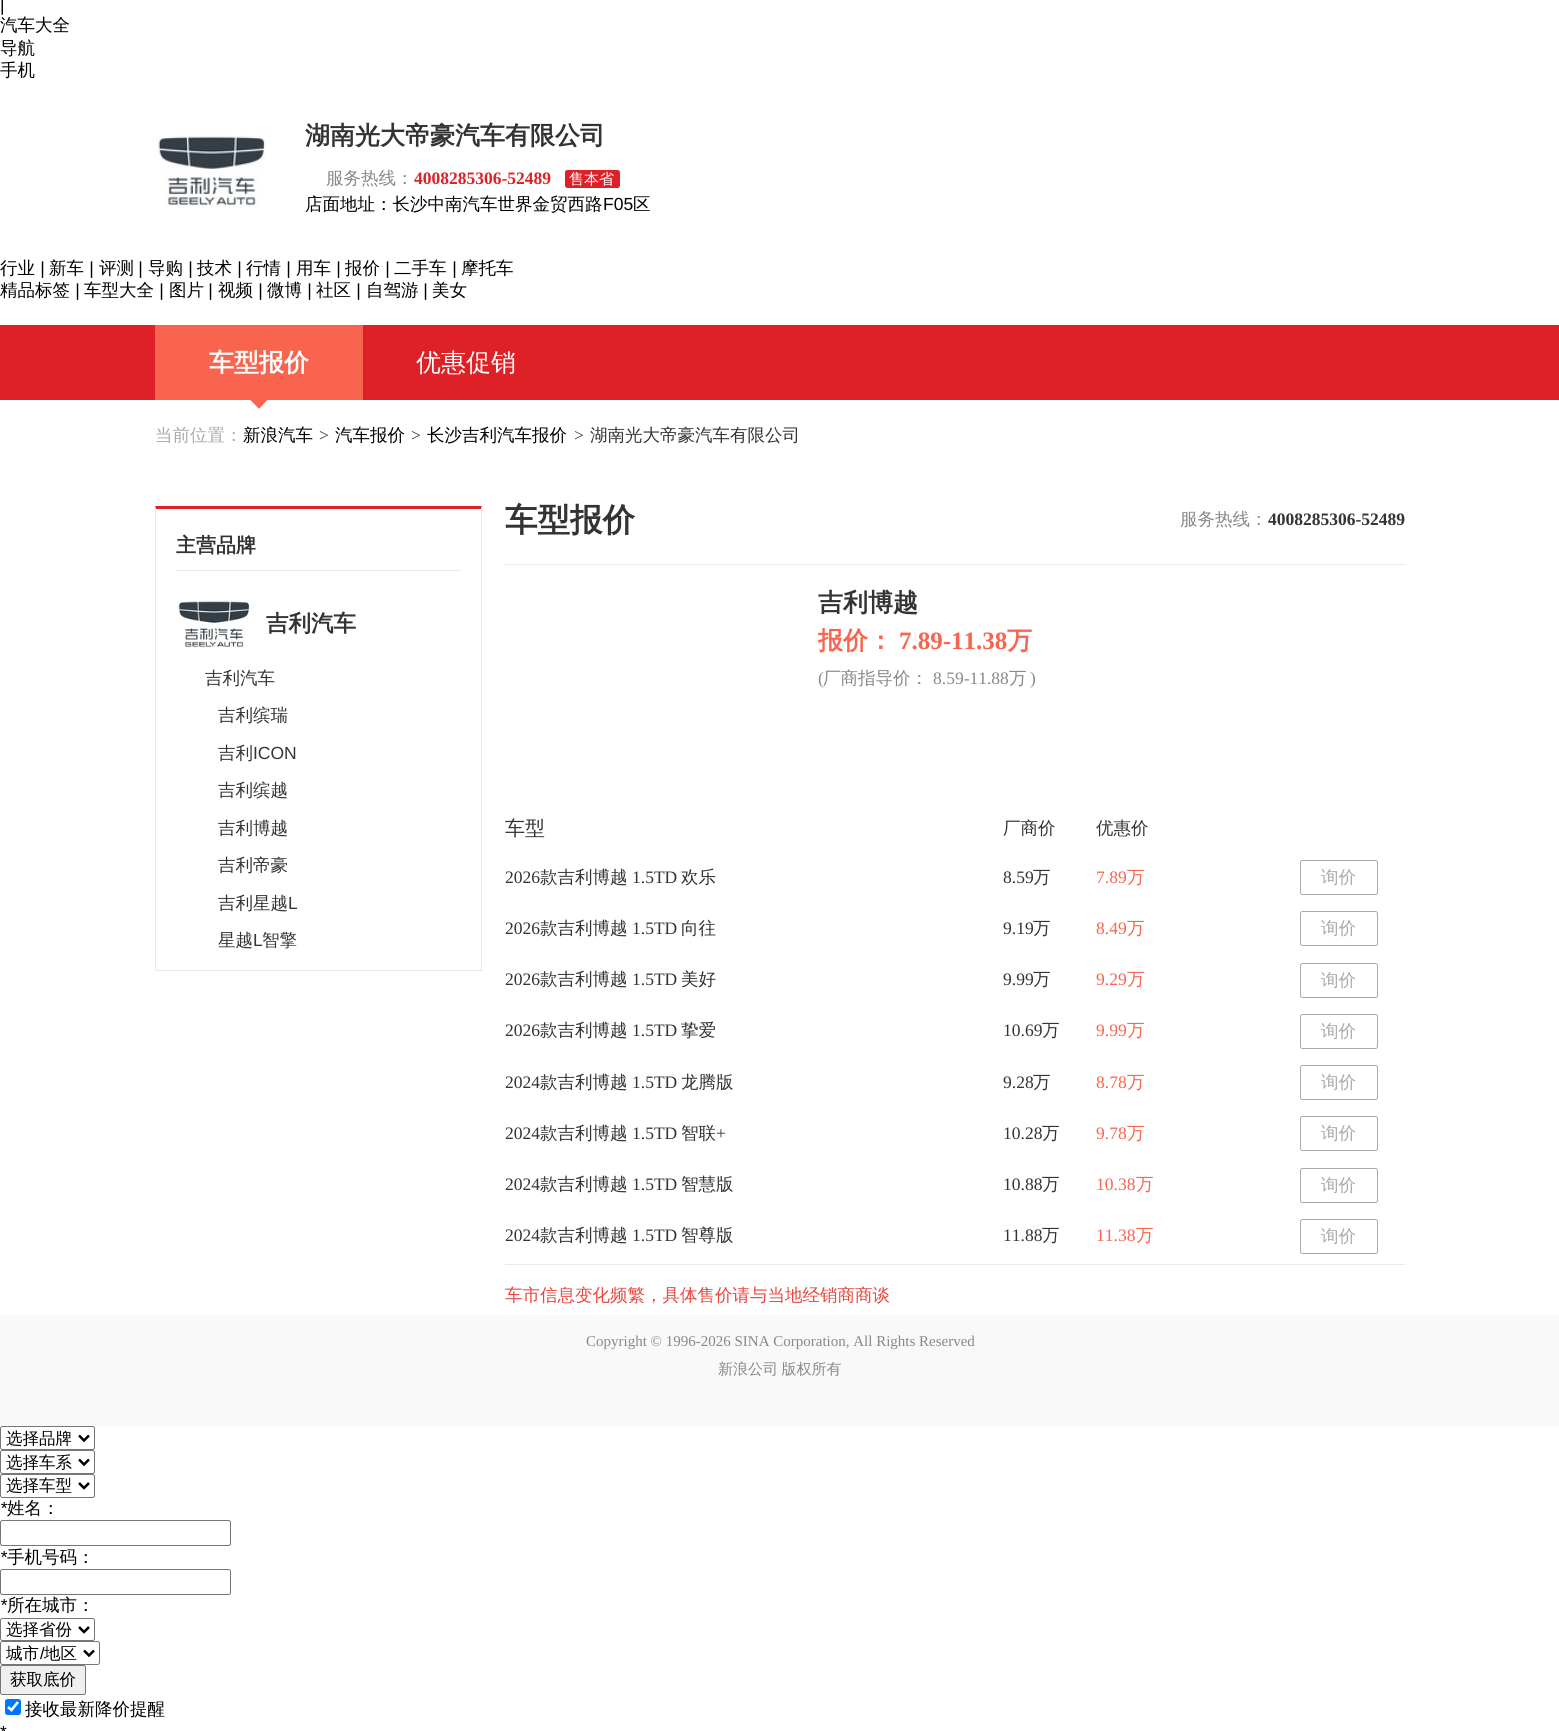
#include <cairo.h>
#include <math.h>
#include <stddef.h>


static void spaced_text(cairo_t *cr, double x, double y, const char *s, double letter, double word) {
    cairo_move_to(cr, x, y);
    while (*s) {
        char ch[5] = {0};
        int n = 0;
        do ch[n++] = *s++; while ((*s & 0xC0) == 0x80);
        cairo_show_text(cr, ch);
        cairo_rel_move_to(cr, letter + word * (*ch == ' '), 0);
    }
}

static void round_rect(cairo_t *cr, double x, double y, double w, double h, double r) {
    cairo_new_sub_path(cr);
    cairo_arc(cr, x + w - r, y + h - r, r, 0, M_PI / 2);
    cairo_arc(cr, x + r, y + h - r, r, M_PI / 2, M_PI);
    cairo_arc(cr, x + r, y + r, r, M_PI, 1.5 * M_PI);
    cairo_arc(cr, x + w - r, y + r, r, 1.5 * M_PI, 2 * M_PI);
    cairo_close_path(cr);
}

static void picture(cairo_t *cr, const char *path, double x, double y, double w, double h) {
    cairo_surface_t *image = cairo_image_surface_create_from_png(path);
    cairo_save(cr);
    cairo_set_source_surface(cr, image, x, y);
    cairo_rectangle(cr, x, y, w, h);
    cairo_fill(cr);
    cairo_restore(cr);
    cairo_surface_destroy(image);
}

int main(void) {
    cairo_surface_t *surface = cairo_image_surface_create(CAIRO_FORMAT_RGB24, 1559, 1731);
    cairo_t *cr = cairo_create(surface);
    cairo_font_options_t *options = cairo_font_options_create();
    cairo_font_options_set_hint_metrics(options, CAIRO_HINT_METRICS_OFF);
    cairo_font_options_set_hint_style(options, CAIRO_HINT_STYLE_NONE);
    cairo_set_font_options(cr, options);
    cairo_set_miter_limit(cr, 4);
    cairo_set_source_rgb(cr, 1, 1, 1);
    cairo_paint(cr);
    cairo_select_font_face(cr, "Liberation Sans", CAIRO_FONT_SLANT_NORMAL, CAIRO_FONT_WEIGHT_NORMAL);
    cairo_set_font_size(cr, 17.5);
    cairo_set_source_rgb(cr, 0, 0, 0);
    cairo_move_to(cr, 0, 11);
    cairo_show_text(cr, "|");
    cairo_select_font_face(cr, "WenQuanYi Zen Hei Medium", CAIRO_FONT_SLANT_NORMAL, CAIRO_FONT_WEIGHT_NORMAL);
    cairo_move_to(cr, 0, 31);
    cairo_show_text(cr, "汽车大全");
    cairo_move_to(cr, 0, 54);
    cairo_show_text(cr, "导航");
    cairo_move_to(cr, 0, 76);
    cairo_show_text(cr, "手机");
    picture(cr, "img1.png", 155, 135, 111, 73);
    cairo_select_font_face(cr, "WenQuanYi Zen Hei", CAIRO_FONT_SLANT_NORMAL, CAIRO_FONT_WEIGHT_BOLD);
    cairo_set_font_size(cr, 25);
    cairo_set_source_rgb(cr, 0.2, 0.2, 0.2);
    cairo_move_to(cr, 305, 144);
    cairo_show_text(cr, "湖南光大帝豪汽车有限公司");
    cairo_select_font_face(cr, "WenQuanYi Zen Hei Medium", CAIRO_FONT_SLANT_NORMAL, CAIRO_FONT_WEIGHT_NORMAL);
    cairo_set_font_size(cr, 17.5);
    cairo_set_source_rgb(cr, 0.533, 0.533, 0.533);
    cairo_move_to(cr, 326, 184);
    cairo_show_text(cr, "服务热线：");
    cairo_select_font_face(cr, "Liberation Serif", CAIRO_FONT_SLANT_NORMAL, CAIRO_FONT_WEIGHT_BOLD);
    cairo_set_source_rgb(cr, 0.871, 0.129, 0.149);
    cairo_move_to(cr, 414, 184);
    cairo_show_text(cr, "4008285306-52489");
    round_rect(cr, 565, 170, 55, 18, 2.5);
    cairo_fill(cr);
    cairo_select_font_face(cr, "WenQuanYi Zen Hei Medium", CAIRO_FONT_SLANT_NORMAL, CAIRO_FONT_WEIGHT_NORMAL);
    cairo_set_font_size(cr, 15);
    cairo_set_source_rgb(cr, 1, 1, 1);
    cairo_move_to(cr, 569, 184);
    cairo_show_text(cr, "售本省");
    cairo_set_font_size(cr, 17.5);
    cairo_set_source_rgb(cr, 0, 0, 0);
    cairo_move_to(cr, 305, 210);
    cairo_show_text(cr, "店面地址：长沙中南汽车世界金贸西路");
    cairo_select_font_face(cr, "Liberation Sans", CAIRO_FONT_SLANT_NORMAL, CAIRO_FONT_WEIGHT_NORMAL);
    cairo_move_to(cr, 603, 210);
    cairo_show_text(cr, "F05");
    cairo_select_font_face(cr, "WenQuanYi Zen Hei Medium", CAIRO_FONT_SLANT_NORMAL, CAIRO_FONT_WEIGHT_NORMAL);
    cairo_move_to(cr, 633, 210);
    cairo_show_text(cr, "区");
    cairo_move_to(cr, 0, 274);
    cairo_show_text(cr, "行业");
    cairo_select_font_face(cr, "Liberation Sans", CAIRO_FONT_SLANT_ITALIC, CAIRO_FONT_WEIGHT_NORMAL);
    cairo_move_to(cr, 40, 274);
    cairo_show_text(cr, "|");
    cairo_select_font_face(cr, "WenQuanYi Zen Hei Medium", CAIRO_FONT_SLANT_NORMAL, CAIRO_FONT_WEIGHT_NORMAL);
    cairo_move_to(cr, 49, 274);
    cairo_show_text(cr, "新车");
    cairo_select_font_face(cr, "Liberation Sans", CAIRO_FONT_SLANT_ITALIC, CAIRO_FONT_WEIGHT_NORMAL);
    cairo_move_to(cr, 89, 274);
    cairo_show_text(cr, "|");
    cairo_select_font_face(cr, "WenQuanYi Zen Hei Medium", CAIRO_FONT_SLANT_NORMAL, CAIRO_FONT_WEIGHT_NORMAL);
    cairo_move_to(cr, 99, 274);
    cairo_show_text(cr, "评测");
    cairo_select_font_face(cr, "Liberation Sans", CAIRO_FONT_SLANT_ITALIC, CAIRO_FONT_WEIGHT_NORMAL);
    cairo_move_to(cr, 138, 274);
    cairo_show_text(cr, "|");
    cairo_select_font_face(cr, "WenQuanYi Zen Hei Medium", CAIRO_FONT_SLANT_NORMAL, CAIRO_FONT_WEIGHT_NORMAL);
    cairo_move_to(cr, 148, 274);
    cairo_show_text(cr, "导购");
    cairo_select_font_face(cr, "Liberation Sans", CAIRO_FONT_SLANT_ITALIC, CAIRO_FONT_WEIGHT_NORMAL);
    cairo_move_to(cr, 188, 274);
    cairo_show_text(cr, "|");
    cairo_select_font_face(cr, "WenQuanYi Zen Hei Medium", CAIRO_FONT_SLANT_NORMAL, CAIRO_FONT_WEIGHT_NORMAL);
    cairo_move_to(cr, 197, 274);
    cairo_show_text(cr, "技术");
    cairo_select_font_face(cr, "Liberation Sans", CAIRO_FONT_SLANT_ITALIC, CAIRO_FONT_WEIGHT_NORMAL);
    cairo_move_to(cr, 237, 274);
    cairo_show_text(cr, "|");
    cairo_select_font_face(cr, "WenQuanYi Zen Hei Medium", CAIRO_FONT_SLANT_NORMAL, CAIRO_FONT_WEIGHT_NORMAL);
    cairo_move_to(cr, 246, 274);
    cairo_show_text(cr, "行情");
    cairo_select_font_face(cr, "Liberation Sans", CAIRO_FONT_SLANT_ITALIC, CAIRO_FONT_WEIGHT_NORMAL);
    cairo_move_to(cr, 286, 274);
    cairo_show_text(cr, "|");
    cairo_select_font_face(cr, "WenQuanYi Zen Hei Medium", CAIRO_FONT_SLANT_NORMAL, CAIRO_FONT_WEIGHT_NORMAL);
    cairo_move_to(cr, 296, 274);
    cairo_show_text(cr, "用车");
    cairo_select_font_face(cr, "Liberation Sans", CAIRO_FONT_SLANT_ITALIC, CAIRO_FONT_WEIGHT_NORMAL);
    cairo_move_to(cr, 336, 274);
    cairo_show_text(cr, "|");
    cairo_select_font_face(cr, "WenQuanYi Zen Hei Medium", CAIRO_FONT_SLANT_NORMAL, CAIRO_FONT_WEIGHT_NORMAL);
    cairo_move_to(cr, 345, 274);
    cairo_show_text(cr, "报价");
    cairo_select_font_face(cr, "Liberation Sans", CAIRO_FONT_SLANT_ITALIC, CAIRO_FONT_WEIGHT_NORMAL);
    cairo_move_to(cr, 385, 274);
    cairo_show_text(cr, "|");
    cairo_select_font_face(cr, "WenQuanYi Zen Hei Medium", CAIRO_FONT_SLANT_NORMAL, CAIRO_FONT_WEIGHT_NORMAL);
    cairo_move_to(cr, 394, 274);
    cairo_show_text(cr, "二手车");
    cairo_select_font_face(cr, "Liberation Sans", CAIRO_FONT_SLANT_ITALIC, CAIRO_FONT_WEIGHT_NORMAL);
    cairo_move_to(cr, 452, 274);
    cairo_show_text(cr, "|");
    cairo_select_font_face(cr, "WenQuanYi Zen Hei Medium", CAIRO_FONT_SLANT_NORMAL, CAIRO_FONT_WEIGHT_NORMAL);
    cairo_move_to(cr, 461, 274);
    cairo_show_text(cr, "摩托车");
    cairo_move_to(cr, 0, 296);
    cairo_show_text(cr, "精品标签");
    cairo_select_font_face(cr, "Liberation Sans", CAIRO_FONT_SLANT_ITALIC, CAIRO_FONT_WEIGHT_NORMAL);
    cairo_move_to(cr, 75, 296);
    cairo_show_text(cr, "|");
    cairo_select_font_face(cr, "WenQuanYi Zen Hei Medium", CAIRO_FONT_SLANT_NORMAL, CAIRO_FONT_WEIGHT_NORMAL);
    cairo_move_to(cr, 84, 296);
    cairo_show_text(cr, "车型大全");
    cairo_select_font_face(cr, "Liberation Sans", CAIRO_FONT_SLANT_ITALIC, CAIRO_FONT_WEIGHT_NORMAL);
    cairo_move_to(cr, 159, 296);
    cairo_show_text(cr, "|");
    cairo_select_font_face(cr, "WenQuanYi Zen Hei Medium", CAIRO_FONT_SLANT_NORMAL, CAIRO_FONT_WEIGHT_NORMAL);
    cairo_move_to(cr, 169, 296);
    cairo_show_text(cr, "图片");
    cairo_select_font_face(cr, "Liberation Sans", CAIRO_FONT_SLANT_ITALIC, CAIRO_FONT_WEIGHT_NORMAL);
    cairo_move_to(cr, 208, 296);
    cairo_show_text(cr, "|");
    cairo_select_font_face(cr, "WenQuanYi Zen Hei Medium", CAIRO_FONT_SLANT_NORMAL, CAIRO_FONT_WEIGHT_NORMAL);
    cairo_move_to(cr, 218, 296);
    cairo_show_text(cr, "视频");
    cairo_select_font_face(cr, "Liberation Sans", CAIRO_FONT_SLANT_ITALIC, CAIRO_FONT_WEIGHT_NORMAL);
    cairo_move_to(cr, 258, 296);
    cairo_show_text(cr, "|");
    cairo_select_font_face(cr, "WenQuanYi Zen Hei Medium", CAIRO_FONT_SLANT_NORMAL, CAIRO_FONT_WEIGHT_NORMAL);
    cairo_move_to(cr, 267, 296);
    cairo_show_text(cr, "微博");
    cairo_select_font_face(cr, "Liberation Sans", CAIRO_FONT_SLANT_ITALIC, CAIRO_FONT_WEIGHT_NORMAL);
    cairo_move_to(cr, 307, 296);
    cairo_show_text(cr, "|");
    cairo_select_font_face(cr, "WenQuanYi Zen Hei Medium", CAIRO_FONT_SLANT_NORMAL, CAIRO_FONT_WEIGHT_NORMAL);
    cairo_move_to(cr, 316, 296);
    cairo_show_text(cr, "社区");
    cairo_select_font_face(cr, "Liberation Sans", CAIRO_FONT_SLANT_ITALIC, CAIRO_FONT_WEIGHT_NORMAL);
    cairo_move_to(cr, 356, 296);
    cairo_show_text(cr, "|");
    cairo_select_font_face(cr, "WenQuanYi Zen Hei Medium", CAIRO_FONT_SLANT_NORMAL, CAIRO_FONT_WEIGHT_NORMAL);
    cairo_move_to(cr, 366, 296);
    cairo_show_text(cr, "自驾游");
    cairo_select_font_face(cr, "Liberation Sans", CAIRO_FONT_SLANT_ITALIC, CAIRO_FONT_WEIGHT_NORMAL);
    cairo_move_to(cr, 423, 296);
    cairo_show_text(cr, "|");
    cairo_select_font_face(cr, "WenQuanYi Zen Hei Medium", CAIRO_FONT_SLANT_NORMAL, CAIRO_FONT_WEIGHT_NORMAL);
    cairo_move_to(cr, 432, 296);
    cairo_show_text(cr, "美女");
    cairo_set_source_rgb(cr, 0.871, 0.129, 0.149);
    cairo_rectangle(cr, 0, 325, 1559, 75);
    cairo_fill(cr);
    cairo_set_source_rgb(cr, 0.976, 0.392, 0.306);
    cairo_rectangle(cr, 155, 325, 208, 75);
    cairo_fill(cr);
    cairo_select_font_face(cr, "WenQuanYi Zen Hei", CAIRO_FONT_SLANT_NORMAL, CAIRO_FONT_WEIGHT_BOLD);
    cairo_set_font_size(cr, 25);
    cairo_set_source_rgb(cr, 1, 1, 1);
    cairo_move_to(cr, 209, 371);
    cairo_show_text(cr, "车型报价");
    cairo_set_source_rgb(cr, 0.976, 0.392, 0.306);
    cairo_new_path(cr);
    cairo_move_to(cr, 250, 400);
    cairo_line_to(cr, 267.5, 400);
    cairo_line_to(cr, 259, 409);
    cairo_close_path(cr);
    cairo_fill(cr);
    cairo_set_source_rgb(cr, 1, 1, 1);
    cairo_new_path(cr);
    cairo_move_to(cr, 267.5, 400);
    cairo_line_to(cr, 267.5, 409);
    cairo_line_to(cr, 259, 409);
    cairo_close_path(cr);
    cairo_move_to(cr, 250, 409);
    cairo_line_to(cr, 250, 400);
    cairo_line_to(cr, 259, 409);
    cairo_close_path(cr);
    cairo_fill(cr);
    cairo_select_font_face(cr, "WenQuanYi Zen Hei Medium", CAIRO_FONT_SLANT_NORMAL, CAIRO_FONT_WEIGHT_NORMAL);
    cairo_move_to(cr, 416, 371);
    cairo_show_text(cr, "优惠促销");
    cairo_set_font_size(cr, 17.5);
    cairo_set_source_rgb(cr, 0.667, 0.667, 0.667);
    cairo_move_to(cr, 155, 441);
    cairo_show_text(cr, "当前位置：");
    cairo_set_source_rgb(cr, 0, 0, 0);
    cairo_move_to(cr, 243, 441);
    cairo_show_text(cr, "新浪汽车");
    cairo_select_font_face(cr, "Liberation Serif", CAIRO_FONT_SLANT_NORMAL, CAIRO_FONT_WEIGHT_NORMAL);
    cairo_set_source_rgb(cr, 0.2, 0.2, 0.2);
    cairo_move_to(cr, 319, 441);
    cairo_show_text(cr, ">");
    cairo_select_font_face(cr, "WenQuanYi Zen Hei Medium", CAIRO_FONT_SLANT_NORMAL, CAIRO_FONT_WEIGHT_NORMAL);
    cairo_set_source_rgb(cr, 0, 0, 0);
    cairo_move_to(cr, 335, 441);
    cairo_show_text(cr, "汽车报价");
    cairo_select_font_face(cr, "Liberation Serif", CAIRO_FONT_SLANT_NORMAL, CAIRO_FONT_WEIGHT_NORMAL);
    cairo_set_source_rgb(cr, 0.2, 0.2, 0.2);
    cairo_move_to(cr, 411, 441);
    cairo_show_text(cr, ">");
    cairo_select_font_face(cr, "WenQuanYi Zen Hei Medium", CAIRO_FONT_SLANT_NORMAL, CAIRO_FONT_WEIGHT_NORMAL);
    cairo_set_source_rgb(cr, 0, 0, 0);
    cairo_move_to(cr, 427, 441);
    cairo_show_text(cr, "长沙吉利汽车报价");
    cairo_select_font_face(cr, "Liberation Serif", CAIRO_FONT_SLANT_NORMAL, CAIRO_FONT_WEIGHT_NORMAL);
    cairo_set_source_rgb(cr, 0.2, 0.2, 0.2);
    cairo_move_to(cr, 574, 441);
    cairo_show_text(cr, ">");
    cairo_select_font_face(cr, "WenQuanYi Zen Hei Medium", CAIRO_FONT_SLANT_NORMAL, CAIRO_FONT_WEIGHT_NORMAL);
    cairo_move_to(cr, 590, 441);
    cairo_show_text(cr, "湖南光大帝豪汽车有限公司");
    cairo_set_source_rgb(cr, 0.871, 0.129, 0.149);
    cairo_new_path(cr);
    cairo_move_to(cr, 155, 506);
    cairo_line_to(cr, 482, 506);
    cairo_line_to(cr, 481, 509);
    cairo_line_to(cr, 156, 509);
    cairo_close_path(cr);
    cairo_fill(cr);
    cairo_set_source_rgb(cr, 0.914, 0.914, 0.914);
    cairo_new_path(cr);
    cairo_move_to(cr, 482, 506);
    cairo_line_to(cr, 482, 971);
    cairo_line_to(cr, 481, 970);
    cairo_line_to(cr, 481, 509);
    cairo_close_path(cr);
    cairo_fill(cr);
    cairo_rectangle(cr, 155, 970, 328, 1);
    cairo_fill(cr);
    cairo_new_path(cr);
    cairo_move_to(cr, 155, 971);
    cairo_line_to(cr, 155, 506);
    cairo_line_to(cr, 156, 509);
    cairo_line_to(cr, 156, 970);
    cairo_close_path(cr);
    cairo_fill(cr);
    cairo_rectangle(cr, 176, 570, 285, 1);
    cairo_fill(cr);
    cairo_select_font_face(cr, "WenQuanYi Zen Hei", CAIRO_FONT_SLANT_NORMAL, CAIRO_FONT_WEIGHT_BOLD);
    cairo_set_font_size(cr, 20);
    cairo_set_source_rgb(cr, 0.2, 0.2, 0.2);
    cairo_move_to(cr, 176, 552);
    cairo_show_text(cr, "主营品牌");
    picture(cr, "img2.png", 177, 600, 73, 49);
    cairo_set_font_size(cr, 22.5);
    cairo_move_to(cr, 266, 631);
    cairo_show_text(cr, "吉利汽车");
    cairo_select_font_face(cr, "WenQuanYi Zen Hei Medium", CAIRO_FONT_SLANT_NORMAL, CAIRO_FONT_WEIGHT_NORMAL);
    cairo_set_font_size(cr, 17.5);
    cairo_move_to(cr, 205, 684);
    cairo_show_text(cr, "吉利汽车");
    cairo_move_to(cr, 218, 721);
    cairo_show_text(cr, "吉利缤瑞");
    cairo_move_to(cr, 218, 759);
    cairo_show_text(cr, "吉利");
    cairo_select_font_face(cr, "Liberation Sans", CAIRO_FONT_SLANT_NORMAL, CAIRO_FONT_WEIGHT_NORMAL);
    cairo_move_to(cr, 253, 759);
    cairo_show_text(cr, "ICON");
    cairo_select_font_face(cr, "WenQuanYi Zen Hei Medium", CAIRO_FONT_SLANT_NORMAL, CAIRO_FONT_WEIGHT_NORMAL);
    cairo_move_to(cr, 218, 796);
    cairo_show_text(cr, "吉利缤越");
    cairo_move_to(cr, 218, 834);
    cairo_show_text(cr, "吉利博越");
    cairo_move_to(cr, 218, 871);
    cairo_show_text(cr, "吉利帝豪");
    cairo_move_to(cr, 218, 909);
    cairo_show_text(cr, "吉利星越");
    cairo_select_font_face(cr, "Liberation Sans", CAIRO_FONT_SLANT_NORMAL, CAIRO_FONT_WEIGHT_NORMAL);
    cairo_move_to(cr, 288, 909);
    cairo_show_text(cr, "L");
    cairo_select_font_face(cr, "WenQuanYi Zen Hei Medium", CAIRO_FONT_SLANT_NORMAL, CAIRO_FONT_WEIGHT_NORMAL);
    cairo_move_to(cr, 218, 946);
    cairo_show_text(cr, "星越");
    cairo_select_font_face(cr, "Liberation Sans", CAIRO_FONT_SLANT_NORMAL, CAIRO_FONT_WEIGHT_NORMAL);
    cairo_move_to(cr, 253, 946);
    cairo_show_text(cr, "L");
    cairo_select_font_face(cr, "WenQuanYi Zen Hei Medium", CAIRO_FONT_SLANT_NORMAL, CAIRO_FONT_WEIGHT_NORMAL);
    cairo_move_to(cr, 262, 946);
    cairo_show_text(cr, "智擎");
    cairo_set_source_rgb(cr, 0.914, 0.914, 0.914);
    cairo_rectangle(cr, 505, 564, 900, 1);
    cairo_fill(cr);
    cairo_select_font_face(cr, "WenQuanYi Zen Hei", CAIRO_FONT_SLANT_NORMAL, CAIRO_FONT_WEIGHT_BOLD);
    cairo_set_font_size(cr, 32.5);
    cairo_set_source_rgb(cr, 0.2, 0.2, 0.2);
    cairo_move_to(cr, 505, 531);
    cairo_show_text(cr, "车型报价");
    cairo_select_font_face(cr, "WenQuanYi Zen Hei Medium", CAIRO_FONT_SLANT_NORMAL, CAIRO_FONT_WEIGHT_NORMAL);
    cairo_set_font_size(cr, 17.5);
    cairo_set_source_rgb(cr, 0.533, 0.533, 0.533);
    cairo_move_to(cr, 1180, 525);
    cairo_show_text(cr, "服务热线：");
    cairo_select_font_face(cr, "Liberation Serif", CAIRO_FONT_SLANT_NORMAL, CAIRO_FONT_WEIGHT_BOLD);
    cairo_set_source_rgb(cr, 0.2, 0.2, 0.2);
    cairo_move_to(cr, 1268, 525);
    cairo_show_text(cr, "4008285306-52489");
    cairo_set_source_rgb(cr, 0.914, 0.914, 0.914);
    cairo_rectangle(cr, 505, 1264, 900, 1);
    cairo_fill(cr);
    cairo_select_font_face(cr, "WenQuanYi Zen Hei", CAIRO_FONT_SLANT_NORMAL, CAIRO_FONT_WEIGHT_BOLD);
    cairo_set_font_size(cr, 25);
    cairo_set_source_rgb(cr, 0.2, 0.2, 0.2);
    cairo_move_to(cr, 818, 611);
    cairo_show_text(cr, "吉利博越");
    cairo_set_source_rgb(cr, 0.976, 0.392, 0.306);
    cairo_move_to(cr, 818, 649);
    cairo_show_text(cr, "报价：");
    cairo_select_font_face(cr, "Liberation Serif", CAIRO_FONT_SLANT_NORMAL, CAIRO_FONT_WEIGHT_BOLD);
    cairo_move_to(cr, 899, 649);
    cairo_show_text(cr, "7.89-11.38");
    cairo_select_font_face(cr, "WenQuanYi Zen Hei", CAIRO_FONT_SLANT_NORMAL, CAIRO_FONT_WEIGHT_BOLD);
    cairo_move_to(cr, 1007, 649);
    cairo_show_text(cr, "万");
    cairo_select_font_face(cr, "Liberation Serif", CAIRO_FONT_SLANT_NORMAL, CAIRO_FONT_WEIGHT_NORMAL);
    cairo_set_font_size(cr, 17.5);
    cairo_set_source_rgb(cr, 0.533, 0.533, 0.533);
    cairo_move_to(cr, 818, 684);
    cairo_show_text(cr, "(");
    cairo_select_font_face(cr, "WenQuanYi Zen Hei Medium", CAIRO_FONT_SLANT_NORMAL, CAIRO_FONT_WEIGHT_NORMAL);
    cairo_move_to(cr, 823, 684);
    cairo_show_text(cr, "厂商指导价：");
    cairo_select_font_face(cr, "Liberation Serif", CAIRO_FONT_SLANT_NORMAL, CAIRO_FONT_WEIGHT_NORMAL);
    cairo_move_to(cr, 933, 684);
    cairo_show_text(cr, "8.59-11.88");
    cairo_select_font_face(cr, "WenQuanYi Zen Hei Medium", CAIRO_FONT_SLANT_NORMAL, CAIRO_FONT_WEIGHT_NORMAL);
    cairo_move_to(cr, 1009, 684);
    cairo_show_text(cr, "万");
    cairo_select_font_face(cr, "Liberation Serif", CAIRO_FONT_SLANT_NORMAL, CAIRO_FONT_WEIGHT_NORMAL);
    cairo_move_to(cr, 1030, 684);
    cairo_show_text(cr, ")");
    cairo_select_font_face(cr, "WenQuanYi Zen Hei Medium", CAIRO_FONT_SLANT_NORMAL, CAIRO_FONT_WEIGHT_NORMAL);
    cairo_set_font_size(cr, 20);
    cairo_set_source_rgb(cr, 0.2, 0.2, 0.2);
    cairo_move_to(cr, 505, 835);
    cairo_show_text(cr, "车型");
    cairo_set_font_size(cr, 17.5);
    cairo_move_to(cr, 1003, 834);
    cairo_show_text(cr, "厂商价");
    cairo_move_to(cr, 1096, 834);
    cairo_show_text(cr, "优惠价");
    cairo_select_font_face(cr, "Liberation Serif", CAIRO_FONT_SLANT_NORMAL, CAIRO_FONT_WEIGHT_NORMAL);
    cairo_move_to(cr, 505, 883);
    cairo_show_text(cr, "2026");
    cairo_select_font_face(cr, "WenQuanYi Zen Hei Medium", CAIRO_FONT_SLANT_NORMAL, CAIRO_FONT_WEIGHT_NORMAL);
    cairo_move_to(cr, 540, 883);
    cairo_show_text(cr, "款吉利博越");
    cairo_select_font_face(cr, "Liberation Serif", CAIRO_FONT_SLANT_NORMAL, CAIRO_FONT_WEIGHT_NORMAL);
    cairo_move_to(cr, 632, 883);
    cairo_show_text(cr, "1.5TD");
    cairo_select_font_face(cr, "WenQuanYi Zen Hei Medium", CAIRO_FONT_SLANT_NORMAL, CAIRO_FONT_WEIGHT_NORMAL);
    cairo_move_to(cr, 681, 883);
    cairo_show_text(cr, "欢乐");
    cairo_select_font_face(cr, "Liberation Serif", CAIRO_FONT_SLANT_NORMAL, CAIRO_FONT_WEIGHT_NORMAL);
    cairo_move_to(cr, 1003, 883);
    cairo_show_text(cr, "8.59");
    cairo_select_font_face(cr, "WenQuanYi Zen Hei Medium", CAIRO_FONT_SLANT_NORMAL, CAIRO_FONT_WEIGHT_NORMAL);
    cairo_move_to(cr, 1033, 883);
    cairo_show_text(cr, "万");
    cairo_select_font_face(cr, "Liberation Serif", CAIRO_FONT_SLANT_NORMAL, CAIRO_FONT_WEIGHT_NORMAL);
    cairo_set_source_rgb(cr, 0.976, 0.392, 0.306);
    cairo_move_to(cr, 1096, 883);
    cairo_show_text(cr, "7.89");
    cairo_select_font_face(cr, "WenQuanYi Zen Hei Medium", CAIRO_FONT_SLANT_NORMAL, CAIRO_FONT_WEIGHT_NORMAL);
    cairo_move_to(cr, 1127, 883);
    cairo_show_text(cr, "万");
    round_rect(cr, 1300.5, 860.5, 77, 34, 2);
    cairo_set_source_rgb(cr, 0.667, 0.667, 0.667);
    cairo_set_line_width(cr, 1);
    cairo_stroke(cr);
    cairo_move_to(cr, 1321, 883);
    cairo_show_text(cr, "询价");
    cairo_select_font_face(cr, "Liberation Serif", CAIRO_FONT_SLANT_NORMAL, CAIRO_FONT_WEIGHT_NORMAL);
    cairo_set_source_rgb(cr, 0.2, 0.2, 0.2);
    cairo_move_to(cr, 505, 934);
    cairo_show_text(cr, "2026");
    cairo_select_font_face(cr, "WenQuanYi Zen Hei Medium", CAIRO_FONT_SLANT_NORMAL, CAIRO_FONT_WEIGHT_NORMAL);
    cairo_move_to(cr, 540, 934);
    cairo_show_text(cr, "款吉利博越");
    cairo_select_font_face(cr, "Liberation Serif", CAIRO_FONT_SLANT_NORMAL, CAIRO_FONT_WEIGHT_NORMAL);
    cairo_move_to(cr, 632, 934);
    cairo_show_text(cr, "1.5TD");
    cairo_select_font_face(cr, "WenQuanYi Zen Hei Medium", CAIRO_FONT_SLANT_NORMAL, CAIRO_FONT_WEIGHT_NORMAL);
    cairo_move_to(cr, 681, 934);
    cairo_show_text(cr, "向往");
    cairo_select_font_face(cr, "Liberation Serif", CAIRO_FONT_SLANT_NORMAL, CAIRO_FONT_WEIGHT_NORMAL);
    cairo_move_to(cr, 1003, 934);
    cairo_show_text(cr, "9.19");
    cairo_select_font_face(cr, "WenQuanYi Zen Hei Medium", CAIRO_FONT_SLANT_NORMAL, CAIRO_FONT_WEIGHT_NORMAL);
    cairo_move_to(cr, 1033, 934);
    cairo_show_text(cr, "万");
    cairo_select_font_face(cr, "Liberation Serif", CAIRO_FONT_SLANT_NORMAL, CAIRO_FONT_WEIGHT_NORMAL);
    cairo_set_source_rgb(cr, 0.976, 0.392, 0.306);
    cairo_move_to(cr, 1096, 934);
    cairo_show_text(cr, "8.49");
    cairo_select_font_face(cr, "WenQuanYi Zen Hei Medium", CAIRO_FONT_SLANT_NORMAL, CAIRO_FONT_WEIGHT_NORMAL);
    cairo_move_to(cr, 1127, 934);
    cairo_show_text(cr, "万");
    round_rect(cr, 1300.5, 911.5, 77, 34, 2);
    cairo_set_source_rgb(cr, 0.667, 0.667, 0.667);
    cairo_stroke(cr);
    cairo_move_to(cr, 1321, 934);
    cairo_show_text(cr, "询价");
    cairo_select_font_face(cr, "Liberation Serif", CAIRO_FONT_SLANT_NORMAL, CAIRO_FONT_WEIGHT_NORMAL);
    cairo_set_source_rgb(cr, 0.2, 0.2, 0.2);
    cairo_move_to(cr, 505, 985);
    cairo_show_text(cr, "2026");
    cairo_select_font_face(cr, "WenQuanYi Zen Hei Medium", CAIRO_FONT_SLANT_NORMAL, CAIRO_FONT_WEIGHT_NORMAL);
    cairo_move_to(cr, 540, 985);
    cairo_show_text(cr, "款吉利博越");
    cairo_select_font_face(cr, "Liberation Serif", CAIRO_FONT_SLANT_NORMAL, CAIRO_FONT_WEIGHT_NORMAL);
    cairo_move_to(cr, 632, 985);
    cairo_show_text(cr, "1.5TD");
    cairo_select_font_face(cr, "WenQuanYi Zen Hei Medium", CAIRO_FONT_SLANT_NORMAL, CAIRO_FONT_WEIGHT_NORMAL);
    cairo_move_to(cr, 681, 985);
    cairo_show_text(cr, "美好");
    cairo_select_font_face(cr, "Liberation Serif", CAIRO_FONT_SLANT_NORMAL, CAIRO_FONT_WEIGHT_NORMAL);
    cairo_move_to(cr, 1003, 985);
    cairo_show_text(cr, "9.99");
    cairo_select_font_face(cr, "WenQuanYi Zen Hei Medium", CAIRO_FONT_SLANT_NORMAL, CAIRO_FONT_WEIGHT_NORMAL);
    cairo_move_to(cr, 1033, 985);
    cairo_show_text(cr, "万");
    cairo_select_font_face(cr, "Liberation Serif", CAIRO_FONT_SLANT_NORMAL, CAIRO_FONT_WEIGHT_NORMAL);
    cairo_set_source_rgb(cr, 0.976, 0.392, 0.306);
    cairo_move_to(cr, 1096, 985);
    cairo_show_text(cr, "9.29");
    cairo_select_font_face(cr, "WenQuanYi Zen Hei Medium", CAIRO_FONT_SLANT_NORMAL, CAIRO_FONT_WEIGHT_NORMAL);
    cairo_move_to(cr, 1127, 985);
    cairo_show_text(cr, "万");
    round_rect(cr, 1300.5, 963.5, 77, 34, 2);
    cairo_set_source_rgb(cr, 0.667, 0.667, 0.667);
    cairo_stroke(cr);
    cairo_move_to(cr, 1321, 986);
    cairo_show_text(cr, "询价");
    cairo_select_font_face(cr, "Liberation Serif", CAIRO_FONT_SLANT_NORMAL, CAIRO_FONT_WEIGHT_NORMAL);
    cairo_set_source_rgb(cr, 0.2, 0.2, 0.2);
    cairo_move_to(cr, 505, 1036);
    cairo_show_text(cr, "2026");
    cairo_select_font_face(cr, "WenQuanYi Zen Hei Medium", CAIRO_FONT_SLANT_NORMAL, CAIRO_FONT_WEIGHT_NORMAL);
    cairo_move_to(cr, 540, 1036);
    cairo_show_text(cr, "款吉利博越");
    cairo_select_font_face(cr, "Liberation Serif", CAIRO_FONT_SLANT_NORMAL, CAIRO_FONT_WEIGHT_NORMAL);
    cairo_move_to(cr, 632, 1036);
    cairo_show_text(cr, "1.5TD");
    cairo_select_font_face(cr, "WenQuanYi Zen Hei Medium", CAIRO_FONT_SLANT_NORMAL, CAIRO_FONT_WEIGHT_NORMAL);
    cairo_move_to(cr, 681, 1036);
    cairo_show_text(cr, "挚爱");
    cairo_select_font_face(cr, "Liberation Serif", CAIRO_FONT_SLANT_NORMAL, CAIRO_FONT_WEIGHT_NORMAL);
    cairo_move_to(cr, 1003, 1036);
    cairo_show_text(cr, "10.69");
    cairo_select_font_face(cr, "WenQuanYi Zen Hei Medium", CAIRO_FONT_SLANT_NORMAL, CAIRO_FONT_WEIGHT_NORMAL);
    cairo_move_to(cr, 1042, 1036);
    cairo_show_text(cr, "万");
    cairo_select_font_face(cr, "Liberation Serif", CAIRO_FONT_SLANT_NORMAL, CAIRO_FONT_WEIGHT_NORMAL);
    cairo_set_source_rgb(cr, 0.976, 0.392, 0.306);
    cairo_move_to(cr, 1096, 1036);
    cairo_show_text(cr, "9.99");
    cairo_select_font_face(cr, "WenQuanYi Zen Hei Medium", CAIRO_FONT_SLANT_NORMAL, CAIRO_FONT_WEIGHT_NORMAL);
    cairo_move_to(cr, 1127, 1036);
    cairo_show_text(cr, "万");
    round_rect(cr, 1300.5, 1014.5, 77, 34, 2);
    cairo_set_source_rgb(cr, 0.667, 0.667, 0.667);
    cairo_stroke(cr);
    cairo_move_to(cr, 1321, 1037);
    cairo_show_text(cr, "询价");
    cairo_select_font_face(cr, "Liberation Serif", CAIRO_FONT_SLANT_NORMAL, CAIRO_FONT_WEIGHT_NORMAL);
    cairo_set_source_rgb(cr, 0.2, 0.2, 0.2);
    cairo_move_to(cr, 505, 1088);
    cairo_show_text(cr, "2024");
    cairo_select_font_face(cr, "WenQuanYi Zen Hei Medium", CAIRO_FONT_SLANT_NORMAL, CAIRO_FONT_WEIGHT_NORMAL);
    cairo_move_to(cr, 540, 1088);
    cairo_show_text(cr, "款吉利博越");
    cairo_select_font_face(cr, "Liberation Serif", CAIRO_FONT_SLANT_NORMAL, CAIRO_FONT_WEIGHT_NORMAL);
    cairo_move_to(cr, 632, 1088);
    cairo_show_text(cr, "1.5TD");
    cairo_select_font_face(cr, "WenQuanYi Zen Hei Medium", CAIRO_FONT_SLANT_NORMAL, CAIRO_FONT_WEIGHT_NORMAL);
    cairo_move_to(cr, 681, 1088);
    cairo_show_text(cr, "龙腾版");
    cairo_select_font_face(cr, "Liberation Serif", CAIRO_FONT_SLANT_NORMAL, CAIRO_FONT_WEIGHT_NORMAL);
    cairo_move_to(cr, 1003, 1088);
    cairo_show_text(cr, "9.28");
    cairo_select_font_face(cr, "WenQuanYi Zen Hei Medium", CAIRO_FONT_SLANT_NORMAL, CAIRO_FONT_WEIGHT_NORMAL);
    cairo_move_to(cr, 1033, 1088);
    cairo_show_text(cr, "万");
    cairo_select_font_face(cr, "Liberation Serif", CAIRO_FONT_SLANT_NORMAL, CAIRO_FONT_WEIGHT_NORMAL);
    cairo_set_source_rgb(cr, 0.976, 0.392, 0.306);
    cairo_move_to(cr, 1096, 1088);
    cairo_show_text(cr, "8.78");
    cairo_select_font_face(cr, "WenQuanYi Zen Hei Medium", CAIRO_FONT_SLANT_NORMAL, CAIRO_FONT_WEIGHT_NORMAL);
    cairo_move_to(cr, 1127, 1088);
    cairo_show_text(cr, "万");
    round_rect(cr, 1300.5, 1065.5, 77, 34, 2);
    cairo_set_source_rgb(cr, 0.667, 0.667, 0.667);
    cairo_stroke(cr);
    cairo_move_to(cr, 1321, 1088);
    cairo_show_text(cr, "询价");
    cairo_select_font_face(cr, "Liberation Serif", CAIRO_FONT_SLANT_NORMAL, CAIRO_FONT_WEIGHT_NORMAL);
    cairo_set_source_rgb(cr, 0.2, 0.2, 0.2);
    cairo_move_to(cr, 505, 1139);
    cairo_show_text(cr, "2024");
    cairo_select_font_face(cr, "WenQuanYi Zen Hei Medium", CAIRO_FONT_SLANT_NORMAL, CAIRO_FONT_WEIGHT_NORMAL);
    cairo_move_to(cr, 540, 1139);
    cairo_show_text(cr, "款吉利博越");
    cairo_select_font_face(cr, "Liberation Serif", CAIRO_FONT_SLANT_NORMAL, CAIRO_FONT_WEIGHT_NORMAL);
    cairo_move_to(cr, 632, 1139);
    cairo_show_text(cr, "1.5TD");
    cairo_select_font_face(cr, "WenQuanYi Zen Hei Medium", CAIRO_FONT_SLANT_NORMAL, CAIRO_FONT_WEIGHT_NORMAL);
    cairo_move_to(cr, 681, 1139);
    cairo_show_text(cr, "智联");
    cairo_select_font_face(cr, "Liberation Serif", CAIRO_FONT_SLANT_NORMAL, CAIRO_FONT_WEIGHT_NORMAL);
    cairo_move_to(cr, 716, 1139);
    cairo_show_text(cr, "+");
    cairo_move_to(cr, 1003, 1139);
    cairo_show_text(cr, "10.28");
    cairo_select_font_face(cr, "WenQuanYi Zen Hei Medium", CAIRO_FONT_SLANT_NORMAL, CAIRO_FONT_WEIGHT_NORMAL);
    cairo_move_to(cr, 1042, 1139);
    cairo_show_text(cr, "万");
    cairo_select_font_face(cr, "Liberation Serif", CAIRO_FONT_SLANT_NORMAL, CAIRO_FONT_WEIGHT_NORMAL);
    cairo_set_source_rgb(cr, 0.976, 0.392, 0.306);
    cairo_move_to(cr, 1096, 1139);
    cairo_show_text(cr, "9.78");
    cairo_select_font_face(cr, "WenQuanYi Zen Hei Medium", CAIRO_FONT_SLANT_NORMAL, CAIRO_FONT_WEIGHT_NORMAL);
    cairo_move_to(cr, 1127, 1139);
    cairo_show_text(cr, "万");
    round_rect(cr, 1300.5, 1116.5, 77, 34, 2);
    cairo_set_source_rgb(cr, 0.667, 0.667, 0.667);
    cairo_stroke(cr);
    cairo_move_to(cr, 1321, 1139);
    cairo_show_text(cr, "询价");
    cairo_select_font_face(cr, "Liberation Serif", CAIRO_FONT_SLANT_NORMAL, CAIRO_FONT_WEIGHT_NORMAL);
    cairo_set_source_rgb(cr, 0.2, 0.2, 0.2);
    cairo_move_to(cr, 505, 1190);
    cairo_show_text(cr, "2024");
    cairo_select_font_face(cr, "WenQuanYi Zen Hei Medium", CAIRO_FONT_SLANT_NORMAL, CAIRO_FONT_WEIGHT_NORMAL);
    cairo_move_to(cr, 540, 1190);
    cairo_show_text(cr, "款吉利博越");
    cairo_select_font_face(cr, "Liberation Serif", CAIRO_FONT_SLANT_NORMAL, CAIRO_FONT_WEIGHT_NORMAL);
    cairo_move_to(cr, 632, 1190);
    cairo_show_text(cr, "1.5TD");
    cairo_select_font_face(cr, "WenQuanYi Zen Hei Medium", CAIRO_FONT_SLANT_NORMAL, CAIRO_FONT_WEIGHT_NORMAL);
    cairo_move_to(cr, 681, 1190);
    cairo_show_text(cr, "智慧版");
    cairo_select_font_face(cr, "Liberation Serif", CAIRO_FONT_SLANT_NORMAL, CAIRO_FONT_WEIGHT_NORMAL);
    cairo_move_to(cr, 1003, 1190);
    cairo_show_text(cr, "10.88");
    cairo_select_font_face(cr, "WenQuanYi Zen Hei Medium", CAIRO_FONT_SLANT_NORMAL, CAIRO_FONT_WEIGHT_NORMAL);
    cairo_move_to(cr, 1042, 1190);
    cairo_show_text(cr, "万");
    cairo_select_font_face(cr, "Liberation Serif", CAIRO_FONT_SLANT_NORMAL, CAIRO_FONT_WEIGHT_NORMAL);
    cairo_set_source_rgb(cr, 0.976, 0.392, 0.306);
    cairo_move_to(cr, 1096, 1190);
    cairo_show_text(cr, "10.38");
    cairo_select_font_face(cr, "WenQuanYi Zen Hei Medium", CAIRO_FONT_SLANT_NORMAL, CAIRO_FONT_WEIGHT_NORMAL);
    cairo_move_to(cr, 1136, 1190);
    cairo_show_text(cr, "万");
    round_rect(cr, 1300.5, 1168.5, 77, 34, 2);
    cairo_set_source_rgb(cr, 0.667, 0.667, 0.667);
    cairo_stroke(cr);
    cairo_move_to(cr, 1321, 1191);
    cairo_show_text(cr, "询价");
    cairo_select_font_face(cr, "Liberation Serif", CAIRO_FONT_SLANT_NORMAL, CAIRO_FONT_WEIGHT_NORMAL);
    cairo_set_source_rgb(cr, 0.2, 0.2, 0.2);
    cairo_move_to(cr, 505, 1241);
    cairo_show_text(cr, "2024");
    cairo_select_font_face(cr, "WenQuanYi Zen Hei Medium", CAIRO_FONT_SLANT_NORMAL, CAIRO_FONT_WEIGHT_NORMAL);
    cairo_move_to(cr, 540, 1241);
    cairo_show_text(cr, "款吉利博越");
    cairo_select_font_face(cr, "Liberation Serif", CAIRO_FONT_SLANT_NORMAL, CAIRO_FONT_WEIGHT_NORMAL);
    cairo_move_to(cr, 632, 1241);
    cairo_show_text(cr, "1.5TD");
    cairo_select_font_face(cr, "WenQuanYi Zen Hei Medium", CAIRO_FONT_SLANT_NORMAL, CAIRO_FONT_WEIGHT_NORMAL);
    cairo_move_to(cr, 681, 1241);
    cairo_show_text(cr, "智尊版");
    cairo_select_font_face(cr, "Liberation Serif", CAIRO_FONT_SLANT_NORMAL, CAIRO_FONT_WEIGHT_NORMAL);
    cairo_move_to(cr, 1003, 1241);
    cairo_show_text(cr, "11.88");
    cairo_select_font_face(cr, "WenQuanYi Zen Hei Medium", CAIRO_FONT_SLANT_NORMAL, CAIRO_FONT_WEIGHT_NORMAL);
    cairo_move_to(cr, 1042, 1241);
    cairo_show_text(cr, "万");
    cairo_select_font_face(cr, "Liberation Serif", CAIRO_FONT_SLANT_NORMAL, CAIRO_FONT_WEIGHT_NORMAL);
    cairo_set_source_rgb(cr, 0.976, 0.392, 0.306);
    cairo_move_to(cr, 1096, 1241);
    cairo_show_text(cr, "11.38");
    cairo_select_font_face(cr, "WenQuanYi Zen Hei Medium", CAIRO_FONT_SLANT_NORMAL, CAIRO_FONT_WEIGHT_NORMAL);
    cairo_move_to(cr, 1136, 1241);
    cairo_show_text(cr, "万");
    round_rect(cr, 1300.5, 1219.5, 77, 34, 2);
    cairo_set_source_rgb(cr, 0.667, 0.667, 0.667);
    cairo_stroke(cr);
    cairo_move_to(cr, 1321, 1242);
    cairo_show_text(cr, "询价");
    cairo_set_source_rgb(cr, 0.914, 0.275, 0.247);
    cairo_move_to(cr, 505, 1301);
    cairo_show_text(cr, "车市信息变化频繁，具体售价请与当地经销商商谈");
    cairo_set_source_rgb(cr, 0.976, 0.976, 0.976);
    cairo_rectangle(cr, 0, 1315, 1559, 111);
    cairo_fill(cr);
    cairo_select_font_face(cr, "Liberation Serif", CAIRO_FONT_SLANT_NORMAL, CAIRO_FONT_WEIGHT_NORMAL);
    cairo_set_font_size(cr, 15);
    cairo_set_source_rgb(cr, 0.533, 0.533, 0.533);
    cairo_move_to(cr, 586, 1346);
    cairo_show_text(cr, "Copyright © 1996-2026 SINA Corporation, All Rights Reserved");
    cairo_select_font_face(cr, "WenQuanYi Zen Hei Medium", CAIRO_FONT_SLANT_NORMAL, CAIRO_FONT_WEIGHT_NORMAL);
    spaced_text(cr, 718, 1374, "新浪公司 版权所有", 0, -1);
    round_rect(cr, 0.5, 1426.5, 94, 23, 2);
    cairo_set_source_rgb(cr, 0.463, 0.463, 0.463);
    cairo_stroke(cr);
    cairo_new_path(cr);
    cairo_move_to(cr, 79, 1435.5);
    cairo_line_to(cr, 84, 1440.5);
    cairo_line_to(cr, 89, 1435.5);
    cairo_set_source_rgb(cr, 0, 0, 0);
    cairo_set_line_width(cr, 2.5);
    cairo_stroke(cr);
    cairo_set_font_size(cr, 16.5);
    cairo_move_to(cr, 6, 1444);
    cairo_show_text(cr, "选择品牌");
    round_rect(cr, 0.5, 1450.5, 94, 23, 2);
    cairo_set_source_rgb(cr, 0.463, 0.463, 0.463);
    cairo_set_line_width(cr, 1);
    cairo_stroke(cr);
    cairo_new_path(cr);
    cairo_move_to(cr, 79, 1459.5);
    cairo_line_to(cr, 84, 1464.5);
    cairo_line_to(cr, 89, 1459.5);
    cairo_set_source_rgb(cr, 0, 0, 0);
    cairo_set_line_width(cr, 2.5);
    cairo_stroke(cr);
    cairo_move_to(cr, 6, 1468);
    cairo_show_text(cr, "选择车系");
    round_rect(cr, 0.5, 1474.5, 94, 23, 2);
    cairo_set_source_rgb(cr, 0.463, 0.463, 0.463);
    cairo_set_line_width(cr, 1);
    cairo_stroke(cr);
    cairo_new_path(cr);
    cairo_move_to(cr, 79, 1483);
    cairo_line_to(cr, 84, 1488);
    cairo_line_to(cr, 89, 1483);
    cairo_set_source_rgb(cr, 0, 0, 0);
    cairo_set_line_width(cr, 2.5);
    cairo_stroke(cr);
    cairo_move_to(cr, 6, 1491);
    cairo_show_text(cr, "选择车型");
    cairo_select_font_face(cr, "Liberation Sans", CAIRO_FONT_SLANT_ITALIC, CAIRO_FONT_WEIGHT_NORMAL);
    cairo_set_font_size(cr, 17.5);
    cairo_move_to(cr, 0, 1514);
    cairo_show_text(cr, "*");
    cairo_select_font_face(cr, "WenQuanYi Zen Hei Medium", CAIRO_FONT_SLANT_NORMAL, CAIRO_FONT_WEIGHT_NORMAL);
    cairo_move_to(cr, 7, 1514);
    cairo_show_text(cr, "姓名：");
    round_rect(cr, 0.5, 1520.5, 230, 25, 2);
    cairo_set_source_rgb(cr, 0.463, 0.463, 0.463);
    cairo_set_line_width(cr, 1);
    cairo_stroke(cr);
    cairo_select_font_face(cr, "Liberation Sans", CAIRO_FONT_SLANT_ITALIC, CAIRO_FONT_WEIGHT_NORMAL);
    cairo_set_source_rgb(cr, 0, 0, 0);
    cairo_move_to(cr, 0, 1563);
    cairo_show_text(cr, "*");
    cairo_select_font_face(cr, "WenQuanYi Zen Hei Medium", CAIRO_FONT_SLANT_NORMAL, CAIRO_FONT_WEIGHT_NORMAL);
    cairo_move_to(cr, 7, 1563);
    cairo_show_text(cr, "手机号码：");
    round_rect(cr, 0.5, 1569.5, 230, 25, 2);
    cairo_set_source_rgb(cr, 0.463, 0.463, 0.463);
    cairo_stroke(cr);
    cairo_select_font_face(cr, "Liberation Sans", CAIRO_FONT_SLANT_ITALIC, CAIRO_FONT_WEIGHT_NORMAL);
    cairo_set_source_rgb(cr, 0, 0, 0);
    cairo_move_to(cr, 0, 1611);
    cairo_show_text(cr, "*");
    cairo_select_font_face(cr, "WenQuanYi Zen Hei Medium", CAIRO_FONT_SLANT_NORMAL, CAIRO_FONT_WEIGHT_NORMAL);
    cairo_move_to(cr, 7, 1611);
    cairo_show_text(cr, "所在城市：");
    round_rect(cr, 0.5, 1618.5, 94, 22, 2);
    cairo_set_source_rgb(cr, 0.463, 0.463, 0.463);
    cairo_stroke(cr);
    cairo_new_path(cr);
    cairo_move_to(cr, 79, 1627);
    cairo_line_to(cr, 84, 1632);
    cairo_line_to(cr, 89, 1627);
    cairo_set_source_rgb(cr, 0, 0, 0);
    cairo_set_line_width(cr, 2.5);
    cairo_stroke(cr);
    cairo_set_font_size(cr, 16.5);
    cairo_move_to(cr, 6, 1635);
    cairo_show_text(cr, "选择省份");
    round_rect(cr, 0.5, 1641.5, 99, 23, 2);
    cairo_set_source_rgb(cr, 0.463, 0.463, 0.463);
    cairo_set_line_width(cr, 1);
    cairo_stroke(cr);
    cairo_new_path(cr);
    cairo_move_to(cr, 84, 1650.5);
    cairo_line_to(cr, 89, 1655.5);
    cairo_line_to(cr, 94, 1650.5);
    cairo_set_source_rgb(cr, 0, 0, 0);
    cairo_set_line_width(cr, 2.5);
    cairo_stroke(cr);
    cairo_move_to(cr, 6, 1659);
    cairo_show_text(cr, "城市");
    cairo_select_font_face(cr, "Liberation Sans", CAIRO_FONT_SLANT_NORMAL, CAIRO_FONT_WEIGHT_NORMAL);
    cairo_move_to(cr, 40, 1659);
    cairo_show_text(cr, "/");
    cairo_select_font_face(cr, "WenQuanYi Zen Hei Medium", CAIRO_FONT_SLANT_NORMAL, CAIRO_FONT_WEIGHT_NORMAL);
    cairo_move_to(cr, 44, 1659);
    cairo_show_text(cr, "地区");
    cairo_set_source_rgb(cr, 0.937, 0.937, 0.937);
    round_rect(cr, 0.5, 1665.5, 85, 29, 2);
    cairo_fill_preserve(cr);
    cairo_set_source_rgb(cr, 0.463, 0.463, 0.463);
    cairo_set_line_width(cr, 1);
    cairo_stroke(cr);
    cairo_set_source_rgb(cr, 0, 0, 0);
    cairo_move_to(cr, 10, 1685);
    cairo_show_text(cr, "获取底价");
    cairo_set_source_rgb(cr, 0, 0.459, 1);
    round_rect(cr, 5, 1699, 16, 16, 2.5);
    cairo_fill(cr);
    cairo_new_path(cr);
    cairo_move_to(cr, 8, 1707);
    cairo_line_to(cr, 11.5, 1710);
    cairo_line_to(cr, 18, 1702);
    cairo_set_source_rgb(cr, 1, 1, 1);
    cairo_set_line_width(cr, 2.6);
    cairo_stroke(cr);
    cairo_set_font_size(cr, 17.5);
    cairo_set_source_rgb(cr, 0, 0, 0);
    cairo_move_to(cr, 25, 1715);
    cairo_show_text(cr, "接收最新降价提醒");
    cairo_select_font_face(cr, "Liberation Sans", CAIRO_FONT_SLANT_NORMAL, CAIRO_FONT_WEIGHT_NORMAL);
    cairo_move_to(cr, 0, 1738);
    cairo_show_text(cr, "*");
    cairo_surface_write_to_png(surface, "page.png");
    cairo_font_options_destroy(options);
    cairo_destroy(cr);
    cairo_surface_destroy(surface);
    return 0;
}
